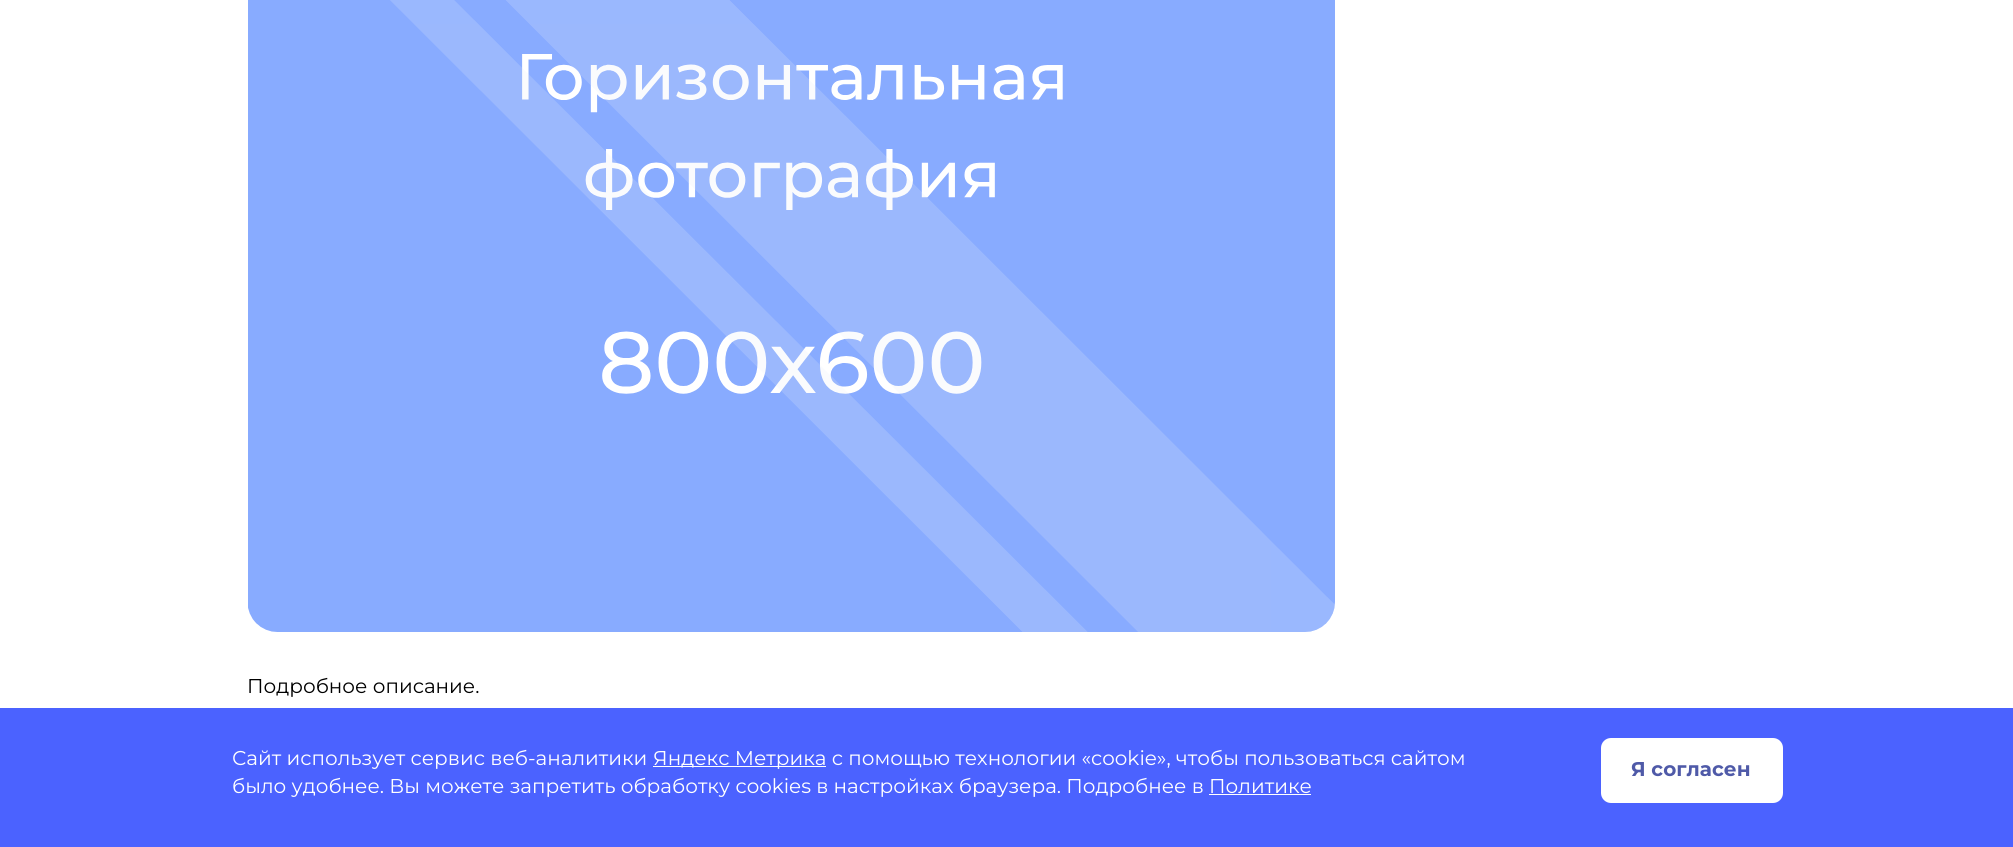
#include <cairo.h>
#include <math.h>
#include <stddef.h>


static void round_rect(cairo_t *cr, double x, double y, double w, double h, double r) {
    cairo_new_sub_path(cr);
    cairo_arc(cr, x + w - r, y + h - r, r, 0, M_PI / 2);
    cairo_arc(cr, x + r, y + h - r, r, M_PI / 2, M_PI);
    cairo_arc(cr, x + r, y + r, r, M_PI, 1.5 * M_PI);
    cairo_arc(cr, x + w - r, y + r, r, 1.5 * M_PI, 2 * M_PI);
    cairo_close_path(cr);
}

static void picture(cairo_t *cr, const char *path, double x, double y, double w, double h) {
    cairo_surface_t *image = cairo_image_surface_create_from_png(path);
    cairo_save(cr);
    cairo_set_source_surface(cr, image, x, y);
    cairo_rectangle(cr, x, y, w, h);
    cairo_fill(cr);
    cairo_restore(cr);
    cairo_surface_destroy(image);
}

int main(void) {
    cairo_surface_t *surface = cairo_image_surface_create(CAIRO_FORMAT_RGB24, 2013, 847);
    cairo_t *cr = cairo_create(surface);
    cairo_font_options_t *options = cairo_font_options_create();
    cairo_font_options_set_hint_metrics(options, CAIRO_HINT_METRICS_OFF);
    cairo_font_options_set_hint_style(options, CAIRO_HINT_STYLE_NONE);
    cairo_set_font_options(cr, options);
    cairo_set_miter_limit(cr, 4);
    cairo_set_source_rgb(cr, 1, 1, 1);
    cairo_paint(cr);
    picture(cr, "img1.png", 248, 0, 1087, 632);
    cairo_select_font_face(cr, "Montserrat", CAIRO_FONT_SLANT_NORMAL, CAIRO_FONT_WEIGHT_NORMAL);
    cairo_set_font_size(cr, 20);
    cairo_set_source_rgb(cr, 0, 0, 0);
    cairo_move_to(cr, 247, 693);
    cairo_show_text(cr, "Подробное описание.");
    cairo_set_source_rgb(cr, 0.294, 0.384, 1);
    cairo_rectangle(cr, 0, 708, 2013, 139);
    cairo_fill(cr);
    cairo_set_source_rgb(cr, 1, 1, 1);
    cairo_move_to(cr, 232, 765);
    cairo_show_text(cr, "Сайт использует сервис веб-аналитики");
    cairo_rectangle(cr, 653, 766, 173, 1);
    cairo_fill(cr);
    cairo_move_to(cr, 653, 765);
    cairo_show_text(cr, "Яндекс Метрика с помощью технологии «cookie», чтобы пользоваться сайтом");
    cairo_move_to(cr, 232, 793);
    cairo_show_text(cr, "было удобнее. Вы можете запретить обработку cookies в настройках браузера. Подробнее в Политике");
    cairo_rectangle(cr, 1209, 794, 102, 1);
    cairo_fill(cr);
    round_rect(cr, 1601, 738, 182, 65, 10);
    cairo_fill(cr);
    cairo_select_font_face(cr, "Montserrat", CAIRO_FONT_SLANT_NORMAL, CAIRO_FONT_WEIGHT_BOLD);
    cairo_set_source_rgb(cr, 0.31, 0.353, 0.659);
    cairo_move_to(cr, 1631, 776);
    cairo_show_text(cr, "Я согласен");
    cairo_surface_write_to_png(surface, "page.png");
    cairo_font_options_destroy(options);
    cairo_destroy(cr);
    cairo_surface_destroy(surface);
    return 0;
}
